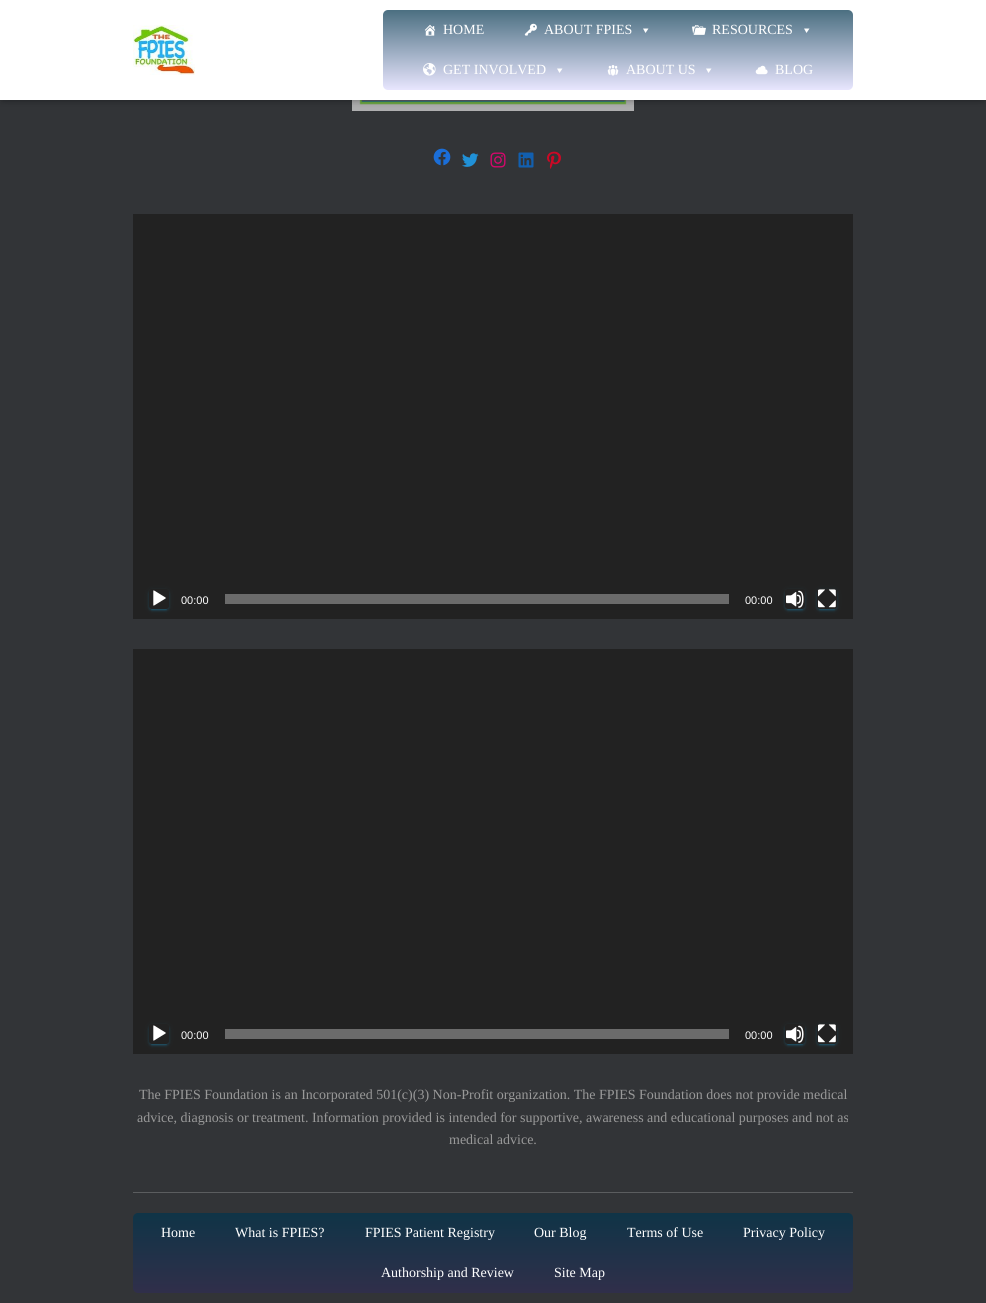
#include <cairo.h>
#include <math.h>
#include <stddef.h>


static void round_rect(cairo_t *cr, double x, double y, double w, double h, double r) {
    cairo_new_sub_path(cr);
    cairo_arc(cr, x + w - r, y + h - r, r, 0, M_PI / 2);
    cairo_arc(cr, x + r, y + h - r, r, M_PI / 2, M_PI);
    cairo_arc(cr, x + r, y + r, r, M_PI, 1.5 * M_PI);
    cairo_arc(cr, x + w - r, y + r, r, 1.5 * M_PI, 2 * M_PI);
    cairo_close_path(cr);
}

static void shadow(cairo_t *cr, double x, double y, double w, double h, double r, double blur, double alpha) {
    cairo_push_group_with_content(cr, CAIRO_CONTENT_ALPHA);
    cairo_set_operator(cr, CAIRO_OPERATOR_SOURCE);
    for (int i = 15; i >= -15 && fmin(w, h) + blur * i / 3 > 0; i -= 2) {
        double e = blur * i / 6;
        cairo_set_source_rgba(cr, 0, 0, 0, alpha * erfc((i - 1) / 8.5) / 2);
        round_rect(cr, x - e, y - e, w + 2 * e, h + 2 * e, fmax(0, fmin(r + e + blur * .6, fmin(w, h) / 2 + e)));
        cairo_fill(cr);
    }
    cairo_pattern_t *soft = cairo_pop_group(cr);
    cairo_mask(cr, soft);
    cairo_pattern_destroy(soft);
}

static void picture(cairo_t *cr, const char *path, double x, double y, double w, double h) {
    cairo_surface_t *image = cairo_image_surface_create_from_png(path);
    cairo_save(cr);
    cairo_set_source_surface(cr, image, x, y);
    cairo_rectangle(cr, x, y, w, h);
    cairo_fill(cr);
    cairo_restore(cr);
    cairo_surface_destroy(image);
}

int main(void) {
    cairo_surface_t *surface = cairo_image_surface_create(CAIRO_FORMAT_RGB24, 986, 1303);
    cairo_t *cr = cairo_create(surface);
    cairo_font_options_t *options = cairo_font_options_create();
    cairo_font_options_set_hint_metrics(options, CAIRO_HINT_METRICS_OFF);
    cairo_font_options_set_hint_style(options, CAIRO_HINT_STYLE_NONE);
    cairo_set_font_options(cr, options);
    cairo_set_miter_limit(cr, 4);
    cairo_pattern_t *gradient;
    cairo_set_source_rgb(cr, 0.196, 0.204, 0.216);
    cairo_paint(cr);
    picture(cr, "img8.png", 352, 100, 282, 11);
    cairo_set_source_rgb(cr, 0, 0, 0);
    shadow(cr, 2, 6, 982, 96, 0, 2.5, 0.1);
    shadow(cr, 0, 1, 986, 100, 0, 5, 0.12);
    shadow(cr, 6, 7, 974, 88, 0, 5, 0.42);
    cairo_set_source_rgb(cr, 1, 1, 1);
    cairo_rectangle(cr, 0, 0, 986, 100);
    cairo_fill(cr);
    picture(cr, "img1.png", 133, 25, 62, 50);
    gradient = cairo_pattern_create_linear(618, 10, 618, 90);
    cairo_pattern_add_color_stop_rgba(gradient, 0, 0.294, 0.435, 0.506, 1);
    cairo_pattern_add_color_stop_rgba(gradient, 1, 0.91, 0.902, 0.996, 1);
    cairo_set_source(cr, gradient);
    cairo_pattern_destroy(gradient);
    round_rect(cr, 383, 10, 470, 80, 5);
    cairo_fill(cr);
    picture(cr, "img2.png", 424, 24, 12, 12);
    cairo_select_font_face(cr, "Liberation Serif", CAIRO_FONT_SLANT_NORMAL, CAIRO_FONT_WEIGHT_NORMAL);
    cairo_set_font_size(cr, 14);
    cairo_set_source_rgb(cr, 1, 1, 1);
    cairo_move_to(cr, 443, 34);
    cairo_show_text(cr, "HOME");
    picture(cr, "img3.png", 524, 23, 13, 13);
    cairo_move_to(cr, 544, 34);
    cairo_show_text(cr, "ABOUT FPIES");
    cairo_new_path(cr);
    cairo_move_to(cr, 648.5, 28.5);
    cairo_line_to(cr, 645.5, 33);
    cairo_line_to(cr, 643, 28.5);
    cairo_close_path(cr);
    cairo_fill(cr);
    picture(cr, "img4.png", 692, 25, 14, 10);
    cairo_move_to(cr, 712, 34);
    cairo_show_text(cr, "RESOURCES");
    cairo_new_path(cr);
    cairo_move_to(cr, 809.5, 28.5);
    cairo_line_to(cr, 806.5, 33);
    cairo_line_to(cr, 804, 28.5);
    cairo_close_path(cr);
    cairo_fill(cr);
    picture(cr, "img5.png", 423, 63, 13, 13);
    cairo_move_to(cr, 443, 74);
    cairo_show_text(cr, "GET INVOLVED");
    cairo_new_path(cr);
    cairo_move_to(cr, 562.5, 68.5);
    cairo_line_to(cr, 559.5, 73);
    cairo_line_to(cr, 557, 68.5);
    cairo_close_path(cr);
    cairo_fill(cr);
    picture(cr, "img6.png", 607, 65, 12, 11);
    cairo_move_to(cr, 626, 74);
    cairo_show_text(cr, "ABOUT US");
    cairo_new_path(cr);
    cairo_move_to(cr, 711.5, 68.5);
    cairo_line_to(cr, 708.5, 73);
    cairo_line_to(cr, 706, 68.5);
    cairo_close_path(cr);
    cairo_fill(cr);
    picture(cr, "img7.png", 755, 65, 13, 10);
    cairo_move_to(cr, 775, 74);
    cairo_show_text(cr, "BLOG");
    picture(cr, "img9.png", 433, 148, 18, 18);
    picture(cr, "img10.png", 462, 153, 17, 14);
    picture(cr, "img11.png", 490, 152, 16, 16);
    picture(cr, "img12.png", 518, 152, 16, 16);
    picture(cr, "img13.png", 547, 151, 14, 18);
    cairo_set_source_rgb(cr, 0.133, 0.133, 0.133);
    cairo_rectangle(cr, 133, 214, 720, 405);
    cairo_fill(cr);
    cairo_save(cr);
    cairo_set_fill_rule(cr, CAIRO_FILL_RULE_EVEN_ODD);
    cairo_new_path(cr);
    cairo_move_to(cr, 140, 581);
    cairo_line_to(cr, 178, 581);
    cairo_line_to(cr, 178, 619);
    cairo_line_to(cr, 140, 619);
    cairo_close_path(cr);
    cairo_move_to(cr, 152, 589);
    cairo_line_to(cr, 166, 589);
    cairo_curve_to(cr, 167.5, 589, 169, 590.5, 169, 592);
    cairo_line_to(cr, 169, 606);
    cairo_curve_to(cr, 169, 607.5, 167.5, 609, 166, 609);
    cairo_line_to(cr, 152, 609);
    cairo_curve_to(cr, 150.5, 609, 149, 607.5, 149, 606);
    cairo_line_to(cr, 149, 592);
    cairo_curve_to(cr, 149, 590.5, 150.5, 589, 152, 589);
    cairo_close_path(cr);
    cairo_clip(cr);
    cairo_set_source_rgb(cr, 0.102, 0.596, 0.808);
    shadow(cr, 149, 590, 20, 20, 3, 2.5, 0.12);
    cairo_restore(cr);
    cairo_save(cr);
    cairo_rectangle(cr, 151, 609, 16, 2);
    cairo_clip(cr);
    cairo_set_source_rgb(cr, 0.102, 0.596, 0.808);
    shadow(cr, 151, 594, 16, 16, 1, 0.5, 0.2);
    cairo_restore(cr);
    cairo_save(cr);
    cairo_set_fill_rule(cr, CAIRO_FILL_RULE_EVEN_ODD);
    cairo_new_path(cr);
    cairo_move_to(cr, 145, 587);
    cairo_line_to(cr, 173, 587);
    cairo_line_to(cr, 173, 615);
    cairo_line_to(cr, 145, 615);
    cairo_close_path(cr);
    cairo_move_to(cr, 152, 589);
    cairo_line_to(cr, 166, 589);
    cairo_curve_to(cr, 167.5, 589, 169, 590.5, 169, 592);
    cairo_line_to(cr, 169, 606);
    cairo_curve_to(cr, 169, 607.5, 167.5, 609, 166, 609);
    cairo_line_to(cr, 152, 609);
    cairo_curve_to(cr, 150.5, 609, 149, 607.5, 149, 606);
    cairo_line_to(cr, 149, 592);
    cairo_curve_to(cr, 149, 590.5, 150.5, 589, 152, 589);
    cairo_close_path(cr);
    cairo_clip(cr);
    cairo_set_source_rgb(cr, 0.102, 0.596, 0.808);
    shadow(cr, 149, 591, 20, 20, 3, 1, 0.14);
    cairo_restore(cr);
    picture(cr, "img14.png", 153, 590, 13, 16);
    cairo_select_font_face(cr, "Liberation Sans", CAIRO_FONT_SLANT_NORMAL, CAIRO_FONT_WEIGHT_NORMAL);
    cairo_set_font_size(cr, 11);
    cairo_set_source_rgb(cr, 1, 1, 1);
    cairo_move_to(cr, 181, 604);
    cairo_show_text(cr, "00:00");
    cairo_set_source_rgb(cr, 0.42, 0.42, 0.42);
    cairo_rectangle(cr, 225, 594, 504, 10);
    cairo_fill(cr);
    cairo_set_source_rgb(cr, 1, 1, 1);
    cairo_move_to(cr, 745, 604);
    cairo_show_text(cr, "00:00");
    cairo_save(cr);
    cairo_set_fill_rule(cr, CAIRO_FILL_RULE_EVEN_ODD);
    cairo_new_path(cr);
    cairo_move_to(cr, 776, 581);
    cairo_line_to(cr, 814, 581);
    cairo_line_to(cr, 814, 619);
    cairo_line_to(cr, 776, 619);
    cairo_close_path(cr);
    cairo_move_to(cr, 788, 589);
    cairo_line_to(cr, 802, 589);
    cairo_curve_to(cr, 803.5, 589, 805, 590.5, 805, 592);
    cairo_line_to(cr, 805, 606);
    cairo_curve_to(cr, 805, 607.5, 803.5, 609, 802, 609);
    cairo_line_to(cr, 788, 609);
    cairo_curve_to(cr, 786.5, 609, 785, 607.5, 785, 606);
    cairo_line_to(cr, 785, 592);
    cairo_curve_to(cr, 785, 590.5, 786.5, 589, 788, 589);
    cairo_close_path(cr);
    cairo_clip(cr);
    cairo_set_source_rgb(cr, 0.102, 0.596, 0.808);
    shadow(cr, 785, 590, 20, 20, 3, 2.5, 0.12);
    cairo_restore(cr);
    cairo_save(cr);
    cairo_rectangle(cr, 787, 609, 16, 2);
    cairo_clip(cr);
    cairo_set_source_rgb(cr, 0.102, 0.596, 0.808);
    shadow(cr, 787, 594, 16, 16, 1, 0.5, 0.2);
    cairo_restore(cr);
    cairo_save(cr);
    cairo_set_fill_rule(cr, CAIRO_FILL_RULE_EVEN_ODD);
    cairo_new_path(cr);
    cairo_move_to(cr, 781, 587);
    cairo_line_to(cr, 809, 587);
    cairo_line_to(cr, 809, 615);
    cairo_line_to(cr, 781, 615);
    cairo_close_path(cr);
    cairo_move_to(cr, 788, 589);
    cairo_line_to(cr, 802, 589);
    cairo_curve_to(cr, 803.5, 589, 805, 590.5, 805, 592);
    cairo_line_to(cr, 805, 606);
    cairo_curve_to(cr, 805, 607.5, 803.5, 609, 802, 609);
    cairo_line_to(cr, 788, 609);
    cairo_curve_to(cr, 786.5, 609, 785, 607.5, 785, 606);
    cairo_line_to(cr, 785, 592);
    cairo_curve_to(cr, 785, 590.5, 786.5, 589, 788, 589);
    cairo_close_path(cr);
    cairo_clip(cr);
    cairo_set_source_rgb(cr, 0.102, 0.596, 0.808);
    shadow(cr, 785, 591, 20, 20, 3, 1, 0.14);
    cairo_restore(cr);
    picture(cr, "img15.png", 786, 590, 18, 18);
    cairo_save(cr);
    cairo_set_fill_rule(cr, CAIRO_FILL_RULE_EVEN_ODD);
    cairo_new_path(cr);
    cairo_move_to(cr, 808, 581);
    cairo_line_to(cr, 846, 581);
    cairo_line_to(cr, 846, 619);
    cairo_line_to(cr, 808, 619);
    cairo_close_path(cr);
    cairo_move_to(cr, 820, 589);
    cairo_line_to(cr, 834, 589);
    cairo_curve_to(cr, 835.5, 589, 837, 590.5, 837, 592);
    cairo_line_to(cr, 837, 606);
    cairo_curve_to(cr, 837, 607.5, 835.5, 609, 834, 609);
    cairo_line_to(cr, 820, 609);
    cairo_curve_to(cr, 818.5, 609, 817, 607.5, 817, 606);
    cairo_line_to(cr, 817, 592);
    cairo_curve_to(cr, 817, 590.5, 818.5, 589, 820, 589);
    cairo_close_path(cr);
    cairo_clip(cr);
    cairo_set_source_rgb(cr, 0.102, 0.596, 0.808);
    shadow(cr, 817, 590, 20, 20, 3, 2.5, 0.12);
    cairo_restore(cr);
    cairo_save(cr);
    cairo_rectangle(cr, 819, 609, 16, 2);
    cairo_clip(cr);
    cairo_set_source_rgb(cr, 0.102, 0.596, 0.808);
    shadow(cr, 819, 594, 16, 16, 1, 0.5, 0.2);
    cairo_restore(cr);
    cairo_save(cr);
    cairo_set_fill_rule(cr, CAIRO_FILL_RULE_EVEN_ODD);
    cairo_new_path(cr);
    cairo_move_to(cr, 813, 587);
    cairo_line_to(cr, 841, 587);
    cairo_line_to(cr, 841, 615);
    cairo_line_to(cr, 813, 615);
    cairo_close_path(cr);
    cairo_move_to(cr, 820, 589);
    cairo_line_to(cr, 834, 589);
    cairo_curve_to(cr, 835.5, 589, 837, 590.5, 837, 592);
    cairo_line_to(cr, 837, 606);
    cairo_curve_to(cr, 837, 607.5, 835.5, 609, 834, 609);
    cairo_line_to(cr, 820, 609);
    cairo_curve_to(cr, 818.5, 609, 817, 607.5, 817, 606);
    cairo_line_to(cr, 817, 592);
    cairo_curve_to(cr, 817, 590.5, 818.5, 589, 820, 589);
    cairo_close_path(cr);
    cairo_clip(cr);
    cairo_set_source_rgb(cr, 0.102, 0.596, 0.808);
    shadow(cr, 817, 591, 20, 20, 3, 1, 0.14);
    cairo_restore(cr);
    picture(cr, "img16.png", 818, 589, 18, 19);
    cairo_set_source_rgb(cr, 0.133, 0.133, 0.133);
    cairo_rectangle(cr, 133, 649, 720, 405);
    cairo_fill(cr);
    cairo_save(cr);
    cairo_set_fill_rule(cr, CAIRO_FILL_RULE_EVEN_ODD);
    cairo_new_path(cr);
    cairo_move_to(cr, 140, 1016);
    cairo_line_to(cr, 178, 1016);
    cairo_line_to(cr, 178, 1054);
    cairo_line_to(cr, 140, 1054);
    cairo_close_path(cr);
    cairo_move_to(cr, 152, 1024);
    cairo_line_to(cr, 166, 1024);
    cairo_curve_to(cr, 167.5, 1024, 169, 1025.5, 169, 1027);
    cairo_line_to(cr, 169, 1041);
    cairo_curve_to(cr, 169, 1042.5, 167.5, 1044, 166, 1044);
    cairo_line_to(cr, 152, 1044);
    cairo_curve_to(cr, 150.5, 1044, 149, 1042.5, 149, 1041);
    cairo_line_to(cr, 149, 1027);
    cairo_curve_to(cr, 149, 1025.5, 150.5, 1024, 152, 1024);
    cairo_close_path(cr);
    cairo_clip(cr);
    cairo_set_source_rgb(cr, 0.102, 0.596, 0.808);
    shadow(cr, 149, 1025, 20, 20, 3, 2.5, 0.12);
    cairo_restore(cr);
    cairo_save(cr);
    cairo_rectangle(cr, 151, 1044, 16, 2);
    cairo_clip(cr);
    cairo_set_source_rgb(cr, 0.102, 0.596, 0.808);
    shadow(cr, 151, 1029, 16, 16, 1, 0.5, 0.2);
    cairo_restore(cr);
    cairo_save(cr);
    cairo_set_fill_rule(cr, CAIRO_FILL_RULE_EVEN_ODD);
    cairo_new_path(cr);
    cairo_move_to(cr, 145, 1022);
    cairo_line_to(cr, 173, 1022);
    cairo_line_to(cr, 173, 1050);
    cairo_line_to(cr, 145, 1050);
    cairo_close_path(cr);
    cairo_move_to(cr, 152, 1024);
    cairo_line_to(cr, 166, 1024);
    cairo_curve_to(cr, 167.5, 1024, 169, 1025.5, 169, 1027);
    cairo_line_to(cr, 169, 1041);
    cairo_curve_to(cr, 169, 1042.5, 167.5, 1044, 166, 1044);
    cairo_line_to(cr, 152, 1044);
    cairo_curve_to(cr, 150.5, 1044, 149, 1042.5, 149, 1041);
    cairo_line_to(cr, 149, 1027);
    cairo_curve_to(cr, 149, 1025.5, 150.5, 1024, 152, 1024);
    cairo_close_path(cr);
    cairo_clip(cr);
    cairo_set_source_rgb(cr, 0.102, 0.596, 0.808);
    shadow(cr, 149, 1026, 20, 20, 3, 1, 0.14);
    cairo_restore(cr);
    picture(cr, "img14.png", 153, 1025, 13, 16);
    cairo_set_source_rgb(cr, 1, 1, 1);
    cairo_move_to(cr, 181, 1039);
    cairo_show_text(cr, "00:00");
    cairo_set_source_rgb(cr, 0.42, 0.42, 0.42);
    cairo_rectangle(cr, 225, 1029, 504, 10);
    cairo_fill(cr);
    cairo_set_source_rgb(cr, 1, 1, 1);
    cairo_move_to(cr, 745, 1039);
    cairo_show_text(cr, "00:00");
    cairo_save(cr);
    cairo_set_fill_rule(cr, CAIRO_FILL_RULE_EVEN_ODD);
    cairo_new_path(cr);
    cairo_move_to(cr, 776, 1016);
    cairo_line_to(cr, 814, 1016);
    cairo_line_to(cr, 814, 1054);
    cairo_line_to(cr, 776, 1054);
    cairo_close_path(cr);
    cairo_move_to(cr, 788, 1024);
    cairo_line_to(cr, 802, 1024);
    cairo_curve_to(cr, 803.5, 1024, 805, 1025.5, 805, 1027);
    cairo_line_to(cr, 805, 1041);
    cairo_curve_to(cr, 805, 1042.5, 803.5, 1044, 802, 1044);
    cairo_line_to(cr, 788, 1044);
    cairo_curve_to(cr, 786.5, 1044, 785, 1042.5, 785, 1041);
    cairo_line_to(cr, 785, 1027);
    cairo_curve_to(cr, 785, 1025.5, 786.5, 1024, 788, 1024);
    cairo_close_path(cr);
    cairo_clip(cr);
    cairo_set_source_rgb(cr, 0.102, 0.596, 0.808);
    shadow(cr, 785, 1025, 20, 20, 3, 2.5, 0.12);
    cairo_restore(cr);
    cairo_save(cr);
    cairo_rectangle(cr, 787, 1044, 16, 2);
    cairo_clip(cr);
    cairo_set_source_rgb(cr, 0.102, 0.596, 0.808);
    shadow(cr, 787, 1029, 16, 16, 1, 0.5, 0.2);
    cairo_restore(cr);
    cairo_save(cr);
    cairo_set_fill_rule(cr, CAIRO_FILL_RULE_EVEN_ODD);
    cairo_new_path(cr);
    cairo_move_to(cr, 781, 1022);
    cairo_line_to(cr, 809, 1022);
    cairo_line_to(cr, 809, 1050);
    cairo_line_to(cr, 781, 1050);
    cairo_close_path(cr);
    cairo_move_to(cr, 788, 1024);
    cairo_line_to(cr, 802, 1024);
    cairo_curve_to(cr, 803.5, 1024, 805, 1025.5, 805, 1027);
    cairo_line_to(cr, 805, 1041);
    cairo_curve_to(cr, 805, 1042.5, 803.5, 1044, 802, 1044);
    cairo_line_to(cr, 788, 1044);
    cairo_curve_to(cr, 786.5, 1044, 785, 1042.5, 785, 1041);
    cairo_line_to(cr, 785, 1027);
    cairo_curve_to(cr, 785, 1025.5, 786.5, 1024, 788, 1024);
    cairo_close_path(cr);
    cairo_clip(cr);
    cairo_set_source_rgb(cr, 0.102, 0.596, 0.808);
    shadow(cr, 785, 1026, 20, 20, 3, 1, 0.14);
    cairo_restore(cr);
    picture(cr, "img15.png", 786, 1025, 18, 18);
    cairo_save(cr);
    cairo_set_fill_rule(cr, CAIRO_FILL_RULE_EVEN_ODD);
    cairo_new_path(cr);
    cairo_move_to(cr, 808, 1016);
    cairo_line_to(cr, 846, 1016);
    cairo_line_to(cr, 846, 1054);
    cairo_line_to(cr, 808, 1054);
    cairo_close_path(cr);
    cairo_move_to(cr, 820, 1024);
    cairo_line_to(cr, 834, 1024);
    cairo_curve_to(cr, 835.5, 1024, 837, 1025.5, 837, 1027);
    cairo_line_to(cr, 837, 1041);
    cairo_curve_to(cr, 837, 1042.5, 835.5, 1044, 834, 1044);
    cairo_line_to(cr, 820, 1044);
    cairo_curve_to(cr, 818.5, 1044, 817, 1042.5, 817, 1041);
    cairo_line_to(cr, 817, 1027);
    cairo_curve_to(cr, 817, 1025.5, 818.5, 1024, 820, 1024);
    cairo_close_path(cr);
    cairo_clip(cr);
    cairo_set_source_rgb(cr, 0.102, 0.596, 0.808);
    shadow(cr, 817, 1025, 20, 20, 3, 2.5, 0.12);
    cairo_restore(cr);
    cairo_save(cr);
    cairo_rectangle(cr, 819, 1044, 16, 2);
    cairo_clip(cr);
    cairo_set_source_rgb(cr, 0.102, 0.596, 0.808);
    shadow(cr, 819, 1029, 16, 16, 1, 0.5, 0.2);
    cairo_restore(cr);
    cairo_save(cr);
    cairo_set_fill_rule(cr, CAIRO_FILL_RULE_EVEN_ODD);
    cairo_new_path(cr);
    cairo_move_to(cr, 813, 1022);
    cairo_line_to(cr, 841, 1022);
    cairo_line_to(cr, 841, 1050);
    cairo_line_to(cr, 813, 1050);
    cairo_close_path(cr);
    cairo_move_to(cr, 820, 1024);
    cairo_line_to(cr, 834, 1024);
    cairo_curve_to(cr, 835.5, 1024, 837, 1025.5, 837, 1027);
    cairo_line_to(cr, 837, 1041);
    cairo_curve_to(cr, 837, 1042.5, 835.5, 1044, 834, 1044);
    cairo_line_to(cr, 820, 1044);
    cairo_curve_to(cr, 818.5, 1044, 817, 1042.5, 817, 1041);
    cairo_line_to(cr, 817, 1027);
    cairo_curve_to(cr, 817, 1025.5, 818.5, 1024, 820, 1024);
    cairo_close_path(cr);
    cairo_clip(cr);
    cairo_set_source_rgb(cr, 0.102, 0.596, 0.808);
    shadow(cr, 817, 1026, 20, 20, 3, 1, 0.14);
    cairo_restore(cr);
    picture(cr, "img16.png", 818, 1024, 18, 19);
    cairo_select_font_face(cr, "Liberation Serif", CAIRO_FONT_SLANT_NORMAL, CAIRO_FONT_WEIGHT_NORMAL);
    cairo_set_font_size(cr, 14);
    cairo_set_source_rgb(cr, 0.6, 0.6, 0.6);
    cairo_move_to(cr, 139, 1099);
    cairo_show_text(cr, "The FPIES Foundation is an Incorporated 501(c)(3) Non-Profit organization. The FPIES Foundation does not provide medical");
    cairo_move_to(cr, 137, 1122);
    cairo_show_text(cr, "advice, diagnosis or treatment. Information provided is intended for supportive, awareness and educational purposes and not as");
    cairo_move_to(cr, 449, 1144);
    cairo_show_text(cr, "medical advice.");
    cairo_set_source_rgb(cr, 0.357, 0.365, 0.373);
    cairo_rectangle(cr, 133, 1192, 720, 1);
    cairo_fill(cr);
    gradient = cairo_pattern_create_linear(493, 1213, 493, 1293);
    cairo_pattern_add_color_stop_rgba(gradient, 0, 0.059, 0.204, 0.278, 1);
    cairo_pattern_add_color_stop_rgba(gradient, 1, 0.188, 0.184, 0.29, 1);
    cairo_set_source(cr, gradient);
    cairo_pattern_destroy(gradient);
    round_rect(cr, 133, 1213, 720, 80, 5);
    cairo_fill(cr);
    cairo_set_source_rgb(cr, 1, 1, 1);
    cairo_move_to(cr, 161, 1237);
    cairo_show_text(cr, "Home");
    cairo_move_to(cr, 235, 1237);
    cairo_show_text(cr, "What is FPIES?");
    cairo_move_to(cr, 365, 1237);
    cairo_show_text(cr, "FPIES Patient Registry");
    cairo_move_to(cr, 534, 1237);
    cairo_show_text(cr, "Our Blog");
    cairo_move_to(cr, 627, 1237);
    cairo_show_text(cr, "Terms of Use");
    cairo_move_to(cr, 743, 1237);
    cairo_show_text(cr, "Privacy Policy");
    cairo_move_to(cr, 381, 1277);
    cairo_show_text(cr, "Authorship and Review");
    cairo_move_to(cr, 554, 1277);
    cairo_show_text(cr, "Site Map");
    cairo_surface_write_to_png(surface, "page.png");
    cairo_font_options_destroy(options);
    cairo_destroy(cr);
    cairo_surface_destroy(surface);
    return 0;
}
